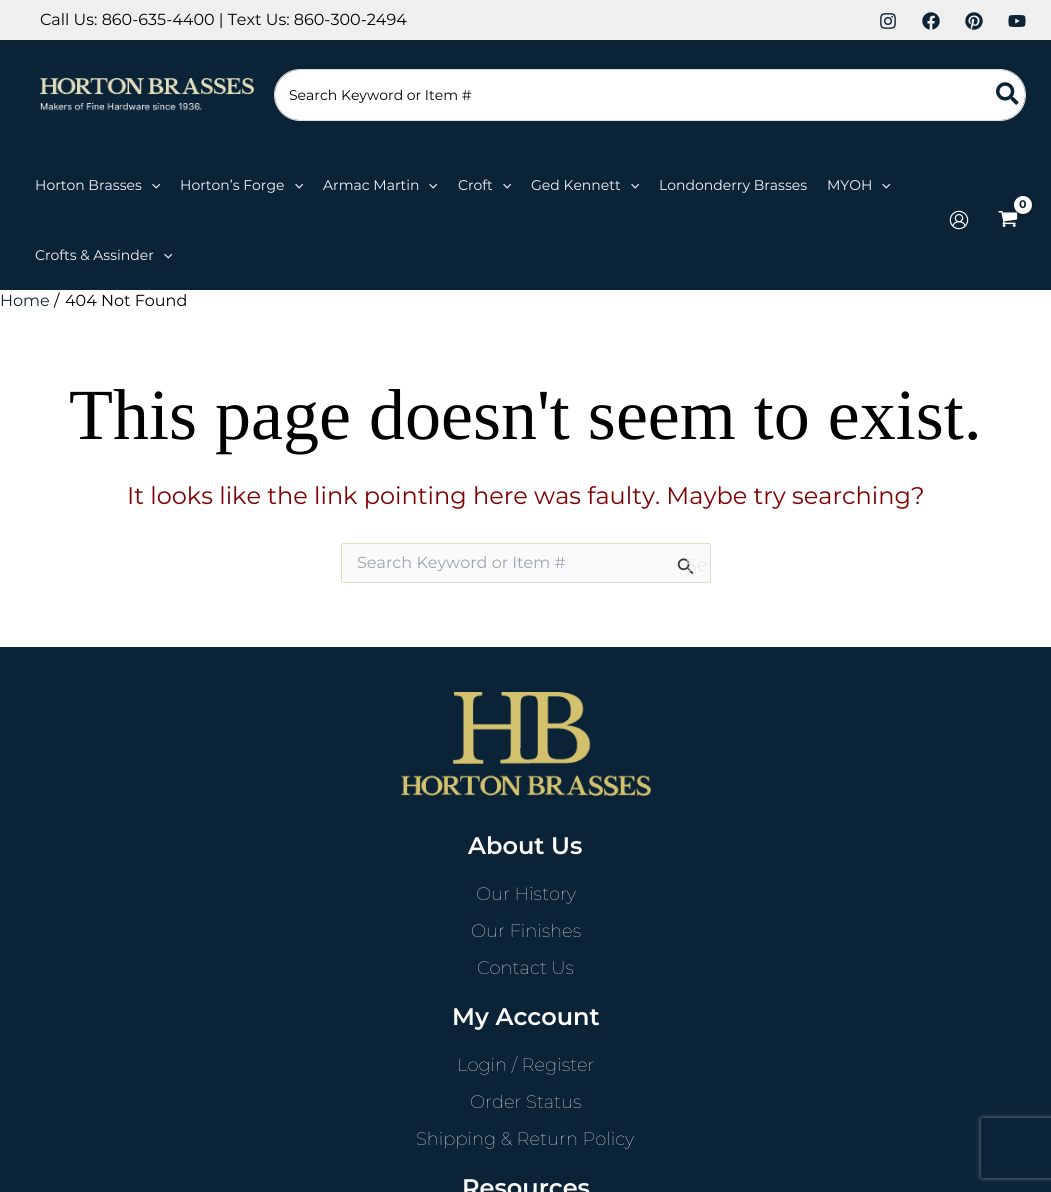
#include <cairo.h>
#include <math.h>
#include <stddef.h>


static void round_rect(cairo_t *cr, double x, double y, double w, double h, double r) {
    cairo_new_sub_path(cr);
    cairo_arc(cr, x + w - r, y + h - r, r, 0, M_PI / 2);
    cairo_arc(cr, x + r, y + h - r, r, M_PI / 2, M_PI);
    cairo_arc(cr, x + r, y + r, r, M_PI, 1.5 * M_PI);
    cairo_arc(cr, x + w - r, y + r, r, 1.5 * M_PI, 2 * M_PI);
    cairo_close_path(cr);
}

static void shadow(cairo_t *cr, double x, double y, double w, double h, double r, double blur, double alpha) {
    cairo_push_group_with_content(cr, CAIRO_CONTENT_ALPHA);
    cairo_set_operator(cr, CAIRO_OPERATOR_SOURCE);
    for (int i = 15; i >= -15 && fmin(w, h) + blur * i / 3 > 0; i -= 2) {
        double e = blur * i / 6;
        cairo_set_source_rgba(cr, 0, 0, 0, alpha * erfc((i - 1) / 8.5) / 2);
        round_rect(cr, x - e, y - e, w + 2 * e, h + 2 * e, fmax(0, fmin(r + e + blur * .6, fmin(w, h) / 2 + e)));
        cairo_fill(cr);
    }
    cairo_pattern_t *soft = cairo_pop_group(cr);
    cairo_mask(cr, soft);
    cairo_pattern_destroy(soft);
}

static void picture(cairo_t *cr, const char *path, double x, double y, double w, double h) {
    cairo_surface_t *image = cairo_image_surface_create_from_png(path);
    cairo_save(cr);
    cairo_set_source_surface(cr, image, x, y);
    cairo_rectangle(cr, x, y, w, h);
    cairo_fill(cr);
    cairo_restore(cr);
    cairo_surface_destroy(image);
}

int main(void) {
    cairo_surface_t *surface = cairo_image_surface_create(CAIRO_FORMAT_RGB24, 1051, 1192);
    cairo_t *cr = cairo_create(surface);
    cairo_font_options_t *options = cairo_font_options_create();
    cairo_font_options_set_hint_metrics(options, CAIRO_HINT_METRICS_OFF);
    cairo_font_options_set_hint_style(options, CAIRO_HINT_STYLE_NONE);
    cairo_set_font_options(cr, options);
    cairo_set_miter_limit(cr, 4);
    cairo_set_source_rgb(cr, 1, 1, 1);
    cairo_paint(cr);
    cairo_set_source_rgb(cr, 0.937, 0.937, 0.937);
    cairo_rectangle(cr, 0, 0, 1051, 40);
    cairo_fill(cr);
    cairo_select_font_face(cr, "Montserrat", CAIRO_FONT_SLANT_NORMAL, CAIRO_FONT_WEIGHT_NORMAL);
    cairo_set_font_size(cr, 16);
    cairo_set_source_rgb(cr, 0, 0, 0);
    cairo_move_to(cr, 40, 25);
    cairo_show_text(cr, "Call Us: 860-635-4400 | Text Us: 860-300-2494");
    picture(cr, "img1.png", 880, 13, 16, 16);
    picture(cr, "img2.png", 922, 12, 18, 18);
    picture(cr, "img3.png", 965, 12, 18, 18);
    picture(cr, "img4.png", 1008, 15, 18, 12);
    cairo_set_source_rgb(cr, 0.043, 0.137, 0.212);
    cairo_rectangle(cr, 0, 40, 1051, 250);
    cairo_fill(cr);
    picture(cr, "img5.png", 40, 78, 214, 33);
    round_rect(cr, 274.5, 69.5, 751, 51, 25.5);
    cairo_set_source_rgb(cr, 0.867, 0.867, 0.867);
    cairo_set_line_width(cr, 1);
    cairo_stroke(cr);
    cairo_set_source_rgb(cr, 1, 1, 1);
    round_rect(cr, 275, 70, 750, 50, 25);
    cairo_fill(cr);
    cairo_set_font_size(cr, 14);
    cairo_set_source_rgb(cr, 0, 0, 0);
    cairo_move_to(cr, 289, 100);
    cairo_show_text(cr, "Search Keyword or Item #");
    picture(cr, "img6.png", 996, 82, 23, 23);
    cairo_set_source_rgb(cr, 0.949, 0.957, 0.973);
    cairo_move_to(cr, 35, 190);
    cairo_show_text(cr, "Horton Brasses");
    picture(cr, "img7.png", 152, 183, 8, 6);
    cairo_move_to(cr, 180, 190);
    cairo_show_text(cr, "Horton’s Forge");
    picture(cr, "img7.png", 295, 183, 8, 6);
    cairo_move_to(cr, 323, 190);
    cairo_show_text(cr, "Armac Martin");
    picture(cr, "img8.png", 429, 183, 9, 6);
    cairo_move_to(cr, 458, 190);
    cairo_show_text(cr, "Croft");
    picture(cr, "img7.png", 503, 183, 8, 6);
    cairo_move_to(cr, 531, 190);
    cairo_show_text(cr, "Ged Kennett");
    picture(cr, "img7.png", 631, 183, 8, 6);
    cairo_move_to(cr, 659, 190);
    cairo_show_text(cr, "Londonderry Brasses");
    cairo_move_to(cr, 827, 190);
    cairo_show_text(cr, "MYOH");
    picture(cr, "img8.png", 882, 183, 9, 6);
    cairo_move_to(cr, 35, 260);
    cairo_show_text(cr, "Crofts & Assinder");
    picture(cr, "img7.png", 164, 253, 8, 6);
    picture(cr, "img9.png", 998, 211, 20, 16);
    cairo_set_source_rgb(cr, 0, 0, 0);
    shadow(cr, 1015, 197, 18, 18, 9, 1.5, 0.3);
    cairo_set_source_rgb(cr, 1, 1, 1);
    cairo_arc(cr, 1023, 205, 9, 0, 2 * M_PI);
    cairo_fill(cr);
    cairo_select_font_face(cr, "Montserrat", CAIRO_FONT_SLANT_NORMAL, CAIRO_FONT_WEIGHT_BOLD);
    cairo_set_font_size(cr, 11);
    cairo_set_source_rgb(cr, 0.043, 0.137, 0.212);
    cairo_move_to(cr, 1019, 208);
    cairo_show_text(cr, "0");
    picture(cr, "img10.png", 949, 210, 20, 20);
    cairo_select_font_face(cr, "Montserrat", CAIRO_FONT_SLANT_NORMAL, CAIRO_FONT_WEIGHT_NORMAL);
    cairo_set_font_size(cr, 16);
    cairo_move_to(cr, 0, 306);
    cairo_show_text(cr, "Home");
    cairo_set_source_rgb(cr, 0, 0, 0);
    cairo_move_to(cr, 54, 306);
    cairo_show_text(cr, "/");
    cairo_move_to(cr, 65, 306);
    cairo_show_text(cr, "404 Not Found");
    cairo_select_font_face(cr, "Liberation Serif", CAIRO_FONT_SLANT_NORMAL, CAIRO_FONT_WEIGHT_NORMAL);
    cairo_set_font_size(cr, 72);
    cairo_move_to(cr, 69, 439);
    cairo_show_text(cr, "This page doesn't seem to exist.");
    cairo_select_font_face(cr, "Montserrat", CAIRO_FONT_SLANT_NORMAL, CAIRO_FONT_WEIGHT_NORMAL);
    cairo_set_font_size(cr, 24);
    cairo_set_source_rgb(cr, 0.502, 0, 0);
    cairo_move_to(cr, 127, 504);
    cairo_show_text(cr, "It looks like the link pointing here was faulty. Maybe try searching?");
    cairo_set_source_rgb(cr, 0.98, 0.98, 0.98);
    round_rect(cr, 341.5, 543.5, 369, 39, 1.5);
    cairo_fill_preserve(cr);
    cairo_set_source_rgb(cr, 0.882, 0.875, 0.745);
    cairo_stroke(cr);
    cairo_set_font_size(cr, 16);
    cairo_set_source_rgb(cr, 0.612, 0.639, 0.686);
    cairo_move_to(cr, 357, 568);
    cairo_show_text(cr, "Search Keyword or Item #");
    picture(cr, "img11.png", 677, 558, 17, 17);
    cairo_select_font_face(cr, "Montserrat Light", CAIRO_FONT_SLANT_NORMAL, CAIRO_FONT_WEIGHT_NORMAL);
    cairo_set_font_size(cr, 18);
    cairo_set_source_rgb(cr, 0.894, 0.894, 0.886);
    cairo_move_to(cr, 686, 571);
    cairo_show_text(cr, "Se");
    cairo_set_source_rgb(cr, 0.043, 0.137, 0.212);
    cairo_rectangle(cr, 0, 647, 1051, 545);
    cairo_fill(cr);
    picture(cr, "img12.png", 401, 692, 250, 104);
    cairo_select_font_face(cr, "Montserrat SemiBold", CAIRO_FONT_SLANT_NORMAL, CAIRO_FONT_WEIGHT_NORMAL);
    cairo_set_font_size(cr, 24);
    cairo_set_source_rgb(cr, 1, 1, 1);
    cairo_move_to(cr, 468, 854);
    cairo_show_text(cr, "About Us");
    cairo_select_font_face(cr, "Montserrat Thin", CAIRO_FONT_SLANT_NORMAL, CAIRO_FONT_WEIGHT_NORMAL);
    cairo_set_font_size(cr, 18);
    cairo_move_to(cr, 476, 900);
    cairo_show_text(cr, "Our History");
    cairo_move_to(cr, 471, 937);
    cairo_show_text(cr, "Our Finishes");
    cairo_move_to(cr, 477, 974);
    cairo_show_text(cr, "Contact Us");
    cairo_select_font_face(cr, "Montserrat SemiBold", CAIRO_FONT_SLANT_NORMAL, CAIRO_FONT_WEIGHT_NORMAL);
    cairo_set_font_size(cr, 24);
    cairo_move_to(cr, 452, 1025);
    cairo_show_text(cr, "My Account");
    cairo_select_font_face(cr, "Montserrat Thin", CAIRO_FONT_SLANT_NORMAL, CAIRO_FONT_WEIGHT_NORMAL);
    cairo_set_font_size(cr, 18);
    cairo_move_to(cr, 457, 1071);
    cairo_show_text(cr, "Login / Register");
    cairo_move_to(cr, 470, 1108);
    cairo_show_text(cr, "Order Status");
    cairo_move_to(cr, 416, 1145);
    cairo_show_text(cr, "Shipping & Return Policy");
    cairo_select_font_face(cr, "Montserrat SemiBold", CAIRO_FONT_SLANT_NORMAL, CAIRO_FONT_WEIGHT_NORMAL);
    cairo_set_font_size(cr, 24);
    cairo_move_to(cr, 462, 1196);
    cairo_show_text(cr, "Resources");
    cairo_save(cr);
    cairo_set_fill_rule(cr, CAIRO_FILL_RULE_EVEN_ODD);
    cairo_new_path(cr);
    cairo_move_to(cr, 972, 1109);
    cairo_line_to(cr, 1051, 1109);
    cairo_line_to(cr, 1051, 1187);
    cairo_line_to(cr, 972, 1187);
    cairo_close_path(cr);
    cairo_move_to(cr, 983, 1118);
    cairo_line_to(cr, 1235, 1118);
    cairo_curve_to(cr, 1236, 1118, 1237, 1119, 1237, 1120);
    cairo_line_to(cr, 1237, 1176);
    cairo_curve_to(cr, 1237, 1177, 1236, 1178, 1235, 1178);
    cairo_line_to(cr, 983, 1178);
    cairo_curve_to(cr, 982, 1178, 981, 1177, 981, 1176);
    cairo_line_to(cr, 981, 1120);
    cairo_curve_to(cr, 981, 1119, 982, 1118, 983, 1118);
    cairo_close_path(cr);
    cairo_clip(cr);
    cairo_set_source_rgb(cr, 0.502, 0.502, 0.502);
    shadow(cr, 981, 1118, 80, 60, 2, 2.5, 1);
    cairo_restore(cr);
    cairo_surface_write_to_png(surface, "page.png");
    cairo_font_options_destroy(options);
    cairo_destroy(cr);
    cairo_surface_destroy(surface);
    return 0;
}
